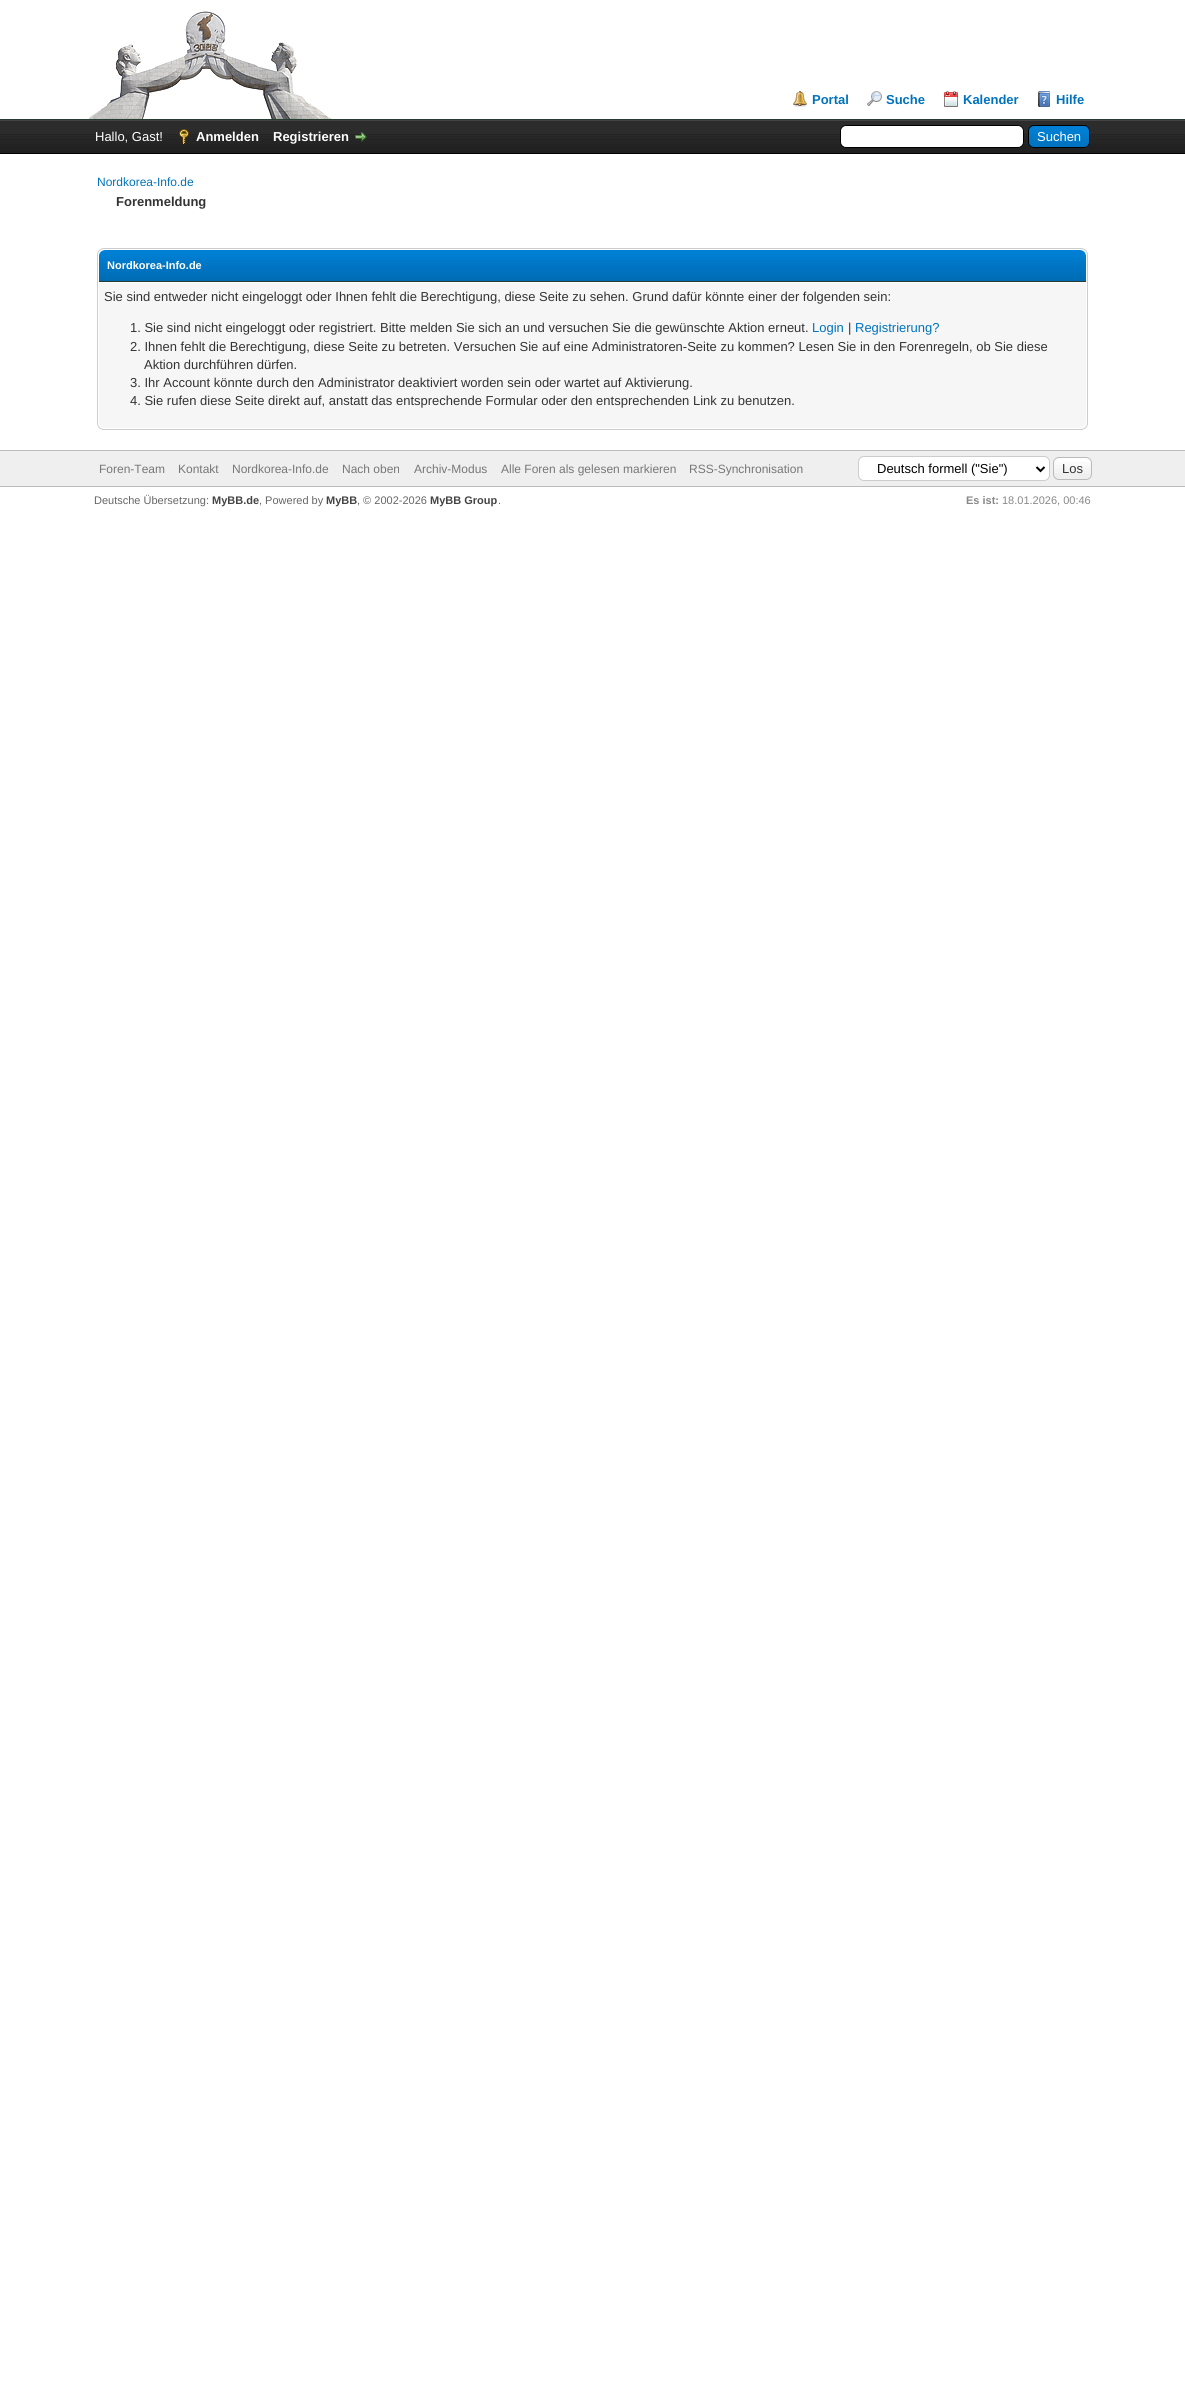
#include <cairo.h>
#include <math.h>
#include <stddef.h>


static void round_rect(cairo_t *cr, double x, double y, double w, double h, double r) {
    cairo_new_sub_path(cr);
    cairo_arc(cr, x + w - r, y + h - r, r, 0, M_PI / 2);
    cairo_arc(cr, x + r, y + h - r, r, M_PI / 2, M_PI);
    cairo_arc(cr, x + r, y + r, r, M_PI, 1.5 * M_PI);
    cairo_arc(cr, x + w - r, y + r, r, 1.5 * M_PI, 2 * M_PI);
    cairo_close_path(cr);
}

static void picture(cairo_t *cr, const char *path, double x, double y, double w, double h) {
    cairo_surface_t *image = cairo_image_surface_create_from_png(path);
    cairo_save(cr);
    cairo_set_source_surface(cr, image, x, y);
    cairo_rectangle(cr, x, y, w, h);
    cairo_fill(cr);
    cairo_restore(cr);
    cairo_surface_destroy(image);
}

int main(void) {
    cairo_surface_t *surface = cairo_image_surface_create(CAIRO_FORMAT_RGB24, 1185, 2385);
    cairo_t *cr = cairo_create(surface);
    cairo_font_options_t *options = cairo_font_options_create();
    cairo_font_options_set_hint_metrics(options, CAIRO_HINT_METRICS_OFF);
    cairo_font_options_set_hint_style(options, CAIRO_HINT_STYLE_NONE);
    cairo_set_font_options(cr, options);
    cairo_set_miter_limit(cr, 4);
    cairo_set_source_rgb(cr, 1, 1, 1);
    cairo_paint(cr);
    cairo_set_source_rgb(cr, 0.149, 0.235, 0.188);
    cairo_rectangle(cr, 0, 119, 1185, 1);
    cairo_fill(cr);
    picture(cr, "img1.png", 89, 11, 242, 108);
    picture(cr, "img2.png", 793, 91, 14, 16);
    cairo_select_font_face(cr, "Liberation Sans", CAIRO_FONT_SLANT_NORMAL, CAIRO_FONT_WEIGHT_BOLD);
    cairo_set_font_size(cr, 13);
    cairo_set_source_rgb(cr, 0, 0.447, 0.737);
    cairo_move_to(cr, 812, 104);
    cairo_show_text(cr, "Portal");
    picture(cr, "img3.png", 867, 91, 15, 15);
    cairo_move_to(cr, 886, 104);
    cairo_show_text(cr, "Suche");
    picture(cr, "img4.png", 944, 91, 14, 16);
    cairo_move_to(cr, 963, 104);
    cairo_show_text(cr, "Kalender");
    picture(cr, "img5.png", 1038, 91, 12, 16);
    cairo_move_to(cr, 1056, 104);
    cairo_show_text(cr, "Hilfe");
    picture(cr, "img6.png", 0, 121, 1185, 32);
    cairo_set_source_rgb(cr, 0.267, 0.267, 0.267);
    cairo_rectangle(cr, 0, 120, 1185, 1);
    cairo_fill(cr);
    cairo_set_source_rgb(cr, 0, 0, 0);
    cairo_rectangle(cr, 0, 153, 1185, 1);
    cairo_fill(cr);
    cairo_select_font_face(cr, "Liberation Sans", CAIRO_FONT_SLANT_NORMAL, CAIRO_FONT_WEIGHT_NORMAL);
    cairo_set_source_rgb(cr, 1, 1, 1);
    cairo_move_to(cr, 95, 141);
    cairo_show_text(cr, "Hallo, Gast!");
    picture(cr, "img7.png", 179, 129, 10, 15);
    cairo_select_font_face(cr, "Liberation Sans", CAIRO_FONT_SLANT_NORMAL, CAIRO_FONT_WEIGHT_BOLD);
    cairo_move_to(cr, 196, 141);
    cairo_show_text(cr, "Anmelden");
    cairo_move_to(cr, 273, 141);
    cairo_show_text(cr, "Registrieren");
    picture(cr, "img8.png", 355, 132, 12, 10);
    round_rect(cr, 840.5, 125.5, 183, 22, 5.5);
    cairo_fill_preserve(cr);
    cairo_set_source_rgb(cr, 0, 0, 0);
    cairo_set_line_width(cr, 1);
    cairo_stroke(cr);
    picture(cr, "img9.png", 1028, 126, 62, 22);
    round_rect(cr, 1028.5, 125.5, 61, 22, 5.5);
    cairo_stroke(cr);
    cairo_select_font_face(cr, "Liberation Sans", CAIRO_FONT_SLANT_NORMAL, CAIRO_FONT_WEIGHT_NORMAL);
    cairo_set_source_rgb(cr, 1, 1, 1);
    cairo_move_to(cr, 1037, 141);
    cairo_show_text(cr, "Suchen");
    cairo_set_font_size(cr, 12);
    cairo_set_source_rgb(cr, 0, 0.447, 0.737);
    cairo_move_to(cr, 97, 186);
    cairo_show_text(cr, "Nordkorea-Info.de");
    cairo_select_font_face(cr, "Liberation Sans", CAIRO_FONT_SLANT_NORMAL, CAIRO_FONT_WEIGHT_BOLD);
    cairo_set_font_size(cr, 13);
    cairo_set_source_rgb(cr, 0.2, 0.2, 0.2);
    cairo_move_to(cr, 116, 206);
    cairo_show_text(cr, "Forenmeldung");
    round_rect(cr, 97.5, 248.5, 990, 181, 6.5);
    cairo_set_source_rgb(cr, 0.8, 0.8, 0.8);
    cairo_stroke(cr);
    picture(cr, "img10.png", 99, 250, 987, 31);
    cairo_set_source_rgb(cr, 0.149, 0.235, 0.188);
    cairo_rectangle(cr, 99, 281, 987, 1);
    cairo_fill(cr);
    cairo_set_font_size(cr, 11);
    cairo_set_source_rgb(cr, 1, 1, 1);
    cairo_move_to(cr, 107, 269);
    cairo_show_text(cr, "Nordkorea-Info.de");
    cairo_set_source_rgb(cr, 0.961, 0.961, 0.961);
    cairo_new_path(cr);
    cairo_move_to(cr, 99, 282);
    cairo_line_to(cr, 1086, 282);
    cairo_line_to(cr, 1086, 422);
    cairo_curve_to(cr, 1086, 425.5, 1083.5, 428, 1080, 428);
    cairo_line_to(cr, 105, 428);
    cairo_curve_to(cr, 101.5, 428, 99, 425.5, 99, 422);
    cairo_close_path(cr);
    cairo_fill(cr);
    cairo_set_source_rgb(cr, 1, 1, 1);
    cairo_rectangle(cr, 99, 282, 987, 1);
    cairo_fill(cr);
    cairo_select_font_face(cr, "Liberation Sans", CAIRO_FONT_SLANT_NORMAL, CAIRO_FONT_WEIGHT_NORMAL);
    cairo_set_font_size(cr, 13);
    cairo_set_source_rgb(cr, 0.2, 0.2, 0.2);
    cairo_move_to(cr, 104, 301);
    cairo_show_text(cr, "Sie sind entweder nicht eingeloggt oder Ihnen fehlt die Berechtigung, diese Seite zu sehen. Grund dafür könnte einer der folgenden sein:");
    cairo_move_to(cr, 130, 332);
    cairo_show_text(cr, "1. Sie sind nicht eingeloggt oder registriert. Bitte melden Sie sich an und versuchen Sie die gewünschte Aktion erneut.");
    cairo_set_source_rgb(cr, 0, 0.447, 0.737);
    cairo_move_to(cr, 812, 332);
    cairo_show_text(cr, "Login");
    cairo_set_source_rgb(cr, 0.2, 0.2, 0.2);
    cairo_move_to(cr, 848, 332);
    cairo_show_text(cr, "|");
    cairo_set_source_rgb(cr, 0, 0.447, 0.737);
    cairo_move_to(cr, 855, 332);
    cairo_show_text(cr, "Registrierung?");
    cairo_set_source_rgb(cr, 0.2, 0.2, 0.2);
    cairo_move_to(cr, 130, 351);
    cairo_show_text(cr, "2. Ihnen fehlt die Berechtigung, diese Seite zu betreten. Versuchen Sie auf eine Administratoren-Seite zu kommen? Lesen Sie in den Forenregeln, ob Sie diese");
    cairo_move_to(cr, 144, 369);
    cairo_show_text(cr, "Aktion durchführen dürfen.");
    cairo_move_to(cr, 130, 387);
    cairo_show_text(cr, "3. Ihr Account könnte durch den Administrator deaktiviert worden sein oder wartet auf Aktivierung.");
    cairo_move_to(cr, 130, 405);
    cairo_show_text(cr, "4. Sie rufen diese Seite direkt auf, anstatt das entsprechende Formular oder den entsprechenden Link zu benutzen.");
    cairo_set_source_rgb(cr, 0.937, 0.937, 0.937);
    cairo_rectangle(cr, 0, 451, 1185, 35);
    cairo_fill(cr);
    cairo_set_source_rgb(cr, 0.733, 0.733, 0.733);
    cairo_rectangle(cr, 0, 450, 1185, 1);
    cairo_fill(cr);
    cairo_rectangle(cr, 0, 486, 1185, 1);
    cairo_fill(cr);
    cairo_set_font_size(cr, 12);
    cairo_set_source_rgb(cr, 0.467, 0.467, 0.467);
    cairo_move_to(cr, 99, 473);
    cairo_show_text(cr, "Foren-Team");
    cairo_move_to(cr, 178, 473);
    cairo_show_text(cr, "Kontakt");
    cairo_move_to(cr, 232, 473);
    cairo_show_text(cr, "Nordkorea-Info.de");
    cairo_move_to(cr, 342, 473);
    cairo_show_text(cr, "Nach oben");
    cairo_move_to(cr, 414, 473);
    cairo_show_text(cr, "Archiv-Modus");
    cairo_move_to(cr, 501, 473);
    cairo_show_text(cr, "Alle Foren als gelesen markieren");
    cairo_move_to(cr, 689, 473);
    cairo_show_text(cr, "RSS-Synchronisation");
    cairo_set_source_rgb(cr, 1, 1, 1);
    round_rect(cr, 858.5, 456.5, 191, 24, 5.5);
    cairo_fill_preserve(cr);
    cairo_set_source_rgb(cr, 0.8, 0.8, 0.8);
    cairo_stroke(cr);
    cairo_new_path(cr);
    cairo_move_to(cr, 1036.5, 467);
    cairo_line_to(cr, 1040.5, 471);
    cairo_line_to(cr, 1044.5, 467);
    cairo_set_source_rgb(cr, 0, 0, 0);
    cairo_set_line_width(cr, 2);
    cairo_stroke(cr);
    cairo_set_font_size(cr, 13);
    cairo_move_to(cr, 877, 473);
    cairo_show_text(cr, "Deutsch formell (\"Sie\")");
    picture(cr, "img11.png", 1053, 458, 39, 15);
    round_rect(cr, 1053.5, 457.5, 38, 22, 5.5);
    cairo_set_source_rgb(cr, 0.733, 0.733, 0.733);
    cairo_set_line_width(cr, 1);
    cairo_stroke(cr);
    cairo_set_source_rgb(cr, 0.2, 0.2, 0.2);
    cairo_move_to(cr, 1062, 473);
    cairo_show_text(cr, "Los");
    cairo_set_font_size(cr, 11);
    cairo_set_source_rgb(cr, 0.4, 0.4, 0.4);
    cairo_move_to(cr, 94, 504);
    cairo_show_text(cr, "Deutsche Übersetzung:");
    cairo_select_font_face(cr, "Liberation Sans", CAIRO_FONT_SLANT_NORMAL, CAIRO_FONT_WEIGHT_BOLD);
    cairo_set_source_rgb(cr, 0.267, 0.267, 0.267);
    cairo_move_to(cr, 212, 504);
    cairo_show_text(cr, "MyBB.de");
    cairo_select_font_face(cr, "Liberation Sans", CAIRO_FONT_SLANT_NORMAL, CAIRO_FONT_WEIGHT_NORMAL);
    cairo_set_source_rgb(cr, 0.4, 0.4, 0.4);
    cairo_move_to(cr, 259, 504);
    cairo_show_text(cr, ", Powered by");
    cairo_select_font_face(cr, "Liberation Sans", CAIRO_FONT_SLANT_NORMAL, CAIRO_FONT_WEIGHT_BOLD);
    cairo_set_source_rgb(cr, 0.267, 0.267, 0.267);
    cairo_move_to(cr, 326, 504);
    cairo_show_text(cr, "MyBB");
    cairo_select_font_face(cr, "Liberation Sans", CAIRO_FONT_SLANT_NORMAL, CAIRO_FONT_WEIGHT_NORMAL);
    cairo_set_source_rgb(cr, 0.4, 0.4, 0.4);
    cairo_move_to(cr, 357, 504);
    cairo_show_text(cr, ", © 2002-2026");
    cairo_select_font_face(cr, "Liberation Sans", CAIRO_FONT_SLANT_NORMAL, CAIRO_FONT_WEIGHT_BOLD);
    cairo_set_source_rgb(cr, 0.267, 0.267, 0.267);
    cairo_move_to(cr, 430, 504);
    cairo_show_text(cr, "MyBB Group");
    cairo_select_font_face(cr, "Liberation Sans", CAIRO_FONT_SLANT_NORMAL, CAIRO_FONT_WEIGHT_NORMAL);
    cairo_set_source_rgb(cr, 0.4, 0.4, 0.4);
    cairo_move_to(cr, 498, 504);
    cairo_show_text(cr, ".");
    cairo_select_font_face(cr, "Liberation Sans", CAIRO_FONT_SLANT_NORMAL, CAIRO_FONT_WEIGHT_BOLD);
    cairo_set_source_rgb(cr, 0.533, 0.533, 0.533);
    cairo_move_to(cr, 966, 504);
    cairo_show_text(cr, "Es ist:");
    cairo_select_font_face(cr, "Liberation Sans", CAIRO_FONT_SLANT_NORMAL, CAIRO_FONT_WEIGHT_NORMAL);
    cairo_move_to(cr, 1002, 504);
    cairo_show_text(cr, "18.01.2026, 00:46");
    cairo_surface_write_to_png(surface, "page.png");
    cairo_font_options_destroy(options);
    cairo_destroy(cr);
    cairo_surface_destroy(surface);
    return 0;
}
